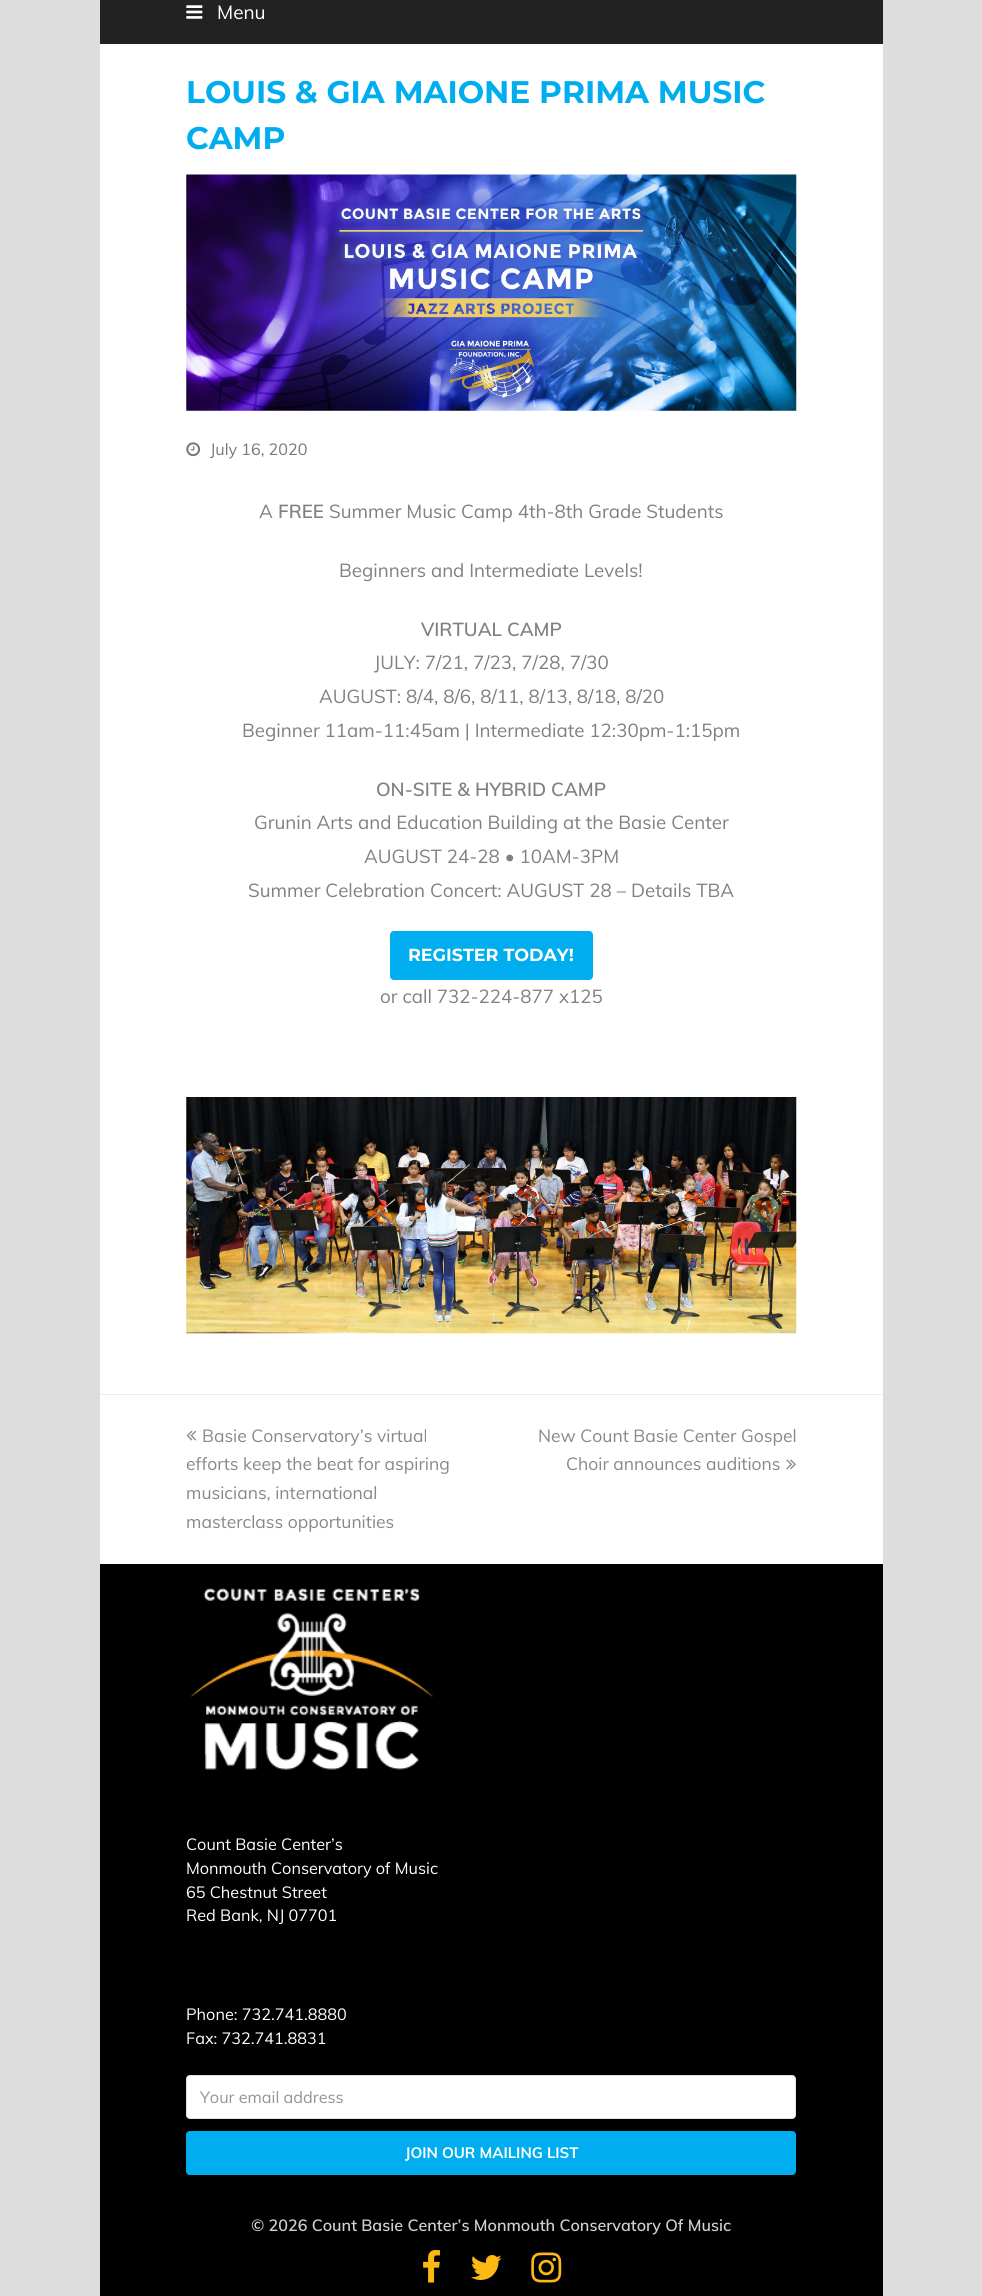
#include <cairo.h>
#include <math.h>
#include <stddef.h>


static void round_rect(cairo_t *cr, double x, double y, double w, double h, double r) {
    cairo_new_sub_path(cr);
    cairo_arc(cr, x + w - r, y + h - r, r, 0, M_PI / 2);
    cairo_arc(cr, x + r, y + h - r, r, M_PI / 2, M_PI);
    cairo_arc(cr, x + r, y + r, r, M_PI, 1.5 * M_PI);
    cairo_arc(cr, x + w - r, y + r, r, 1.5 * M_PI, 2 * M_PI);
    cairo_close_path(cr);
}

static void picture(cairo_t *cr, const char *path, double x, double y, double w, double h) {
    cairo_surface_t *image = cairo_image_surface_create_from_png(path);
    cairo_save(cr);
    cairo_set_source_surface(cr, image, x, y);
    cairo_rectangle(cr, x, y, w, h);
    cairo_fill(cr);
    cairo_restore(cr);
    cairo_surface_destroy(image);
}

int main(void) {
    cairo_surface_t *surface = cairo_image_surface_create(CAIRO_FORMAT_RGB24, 982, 2296);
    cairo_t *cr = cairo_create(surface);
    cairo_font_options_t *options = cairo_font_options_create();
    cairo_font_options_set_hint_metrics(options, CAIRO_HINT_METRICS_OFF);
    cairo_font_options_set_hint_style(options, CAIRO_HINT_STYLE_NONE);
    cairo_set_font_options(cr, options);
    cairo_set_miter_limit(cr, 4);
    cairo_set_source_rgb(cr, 0.867, 0.867, 0.867);
    cairo_paint(cr);
    cairo_set_source_rgb(cr, 1, 1, 1);
    cairo_rectangle(cr, 100, 44, 783, 1520);
    cairo_fill(cr);
    cairo_set_source_rgb(cr, 0.133, 0.133, 0.133);
    cairo_rectangle(cr, 100, 0, 783, 44);
    cairo_fill(cr);
    picture(cr, "img1.png", 186, 5, 17, 14);
    cairo_select_font_face(cr, "Muli", CAIRO_FONT_SLANT_NORMAL, CAIRO_FONT_WEIGHT_NORMAL);
    cairo_set_font_size(cr, 19);
    cairo_set_source_rgb(cr, 1, 1, 1);
    cairo_move_to(cr, 217, 19);
    cairo_show_text(cr, "Menu");
    cairo_select_font_face(cr, "Montserrat", CAIRO_FONT_SLANT_NORMAL, CAIRO_FONT_WEIGHT_BOLD);
    cairo_set_font_size(cr, 31.25);
    cairo_set_source_rgb(cr, 0, 0.682, 0.937);
    cairo_move_to(cr, 186, 103);
    cairo_show_text(cr, "LOUIS & GIA MAIONE PRIMA MUSIC");
    cairo_move_to(cr, 186, 149);
    cairo_show_text(cr, "CAMP");
    picture(cr, "img2.png", 186, 174, 611, 237);
    picture(cr, "img3.png", 186, 442, 15, 15);
    cairo_select_font_face(cr, "Muli", CAIRO_FONT_SLANT_NORMAL, CAIRO_FONT_WEIGHT_NORMAL);
    cairo_set_font_size(cr, 16.15);
    cairo_set_source_rgb(cr, 0.467, 0.467, 0.467);
    cairo_move_to(cr, 210, 455);
    cairo_show_text(cr, "July 16, 2020");
    cairo_set_font_size(cr, 18.75);
    cairo_set_source_rgb(cr, 0.502, 0.502, 0.51);
    cairo_move_to(cr, 259, 518);
    cairo_show_text(cr, "A");
    cairo_select_font_face(cr, "Muli SemiBold", CAIRO_FONT_SLANT_NORMAL, CAIRO_FONT_WEIGHT_NORMAL);
    cairo_move_to(cr, 278, 518);
    cairo_show_text(cr, "FREE");
    cairo_select_font_face(cr, "Muli", CAIRO_FONT_SLANT_NORMAL, CAIRO_FONT_WEIGHT_NORMAL);
    cairo_move_to(cr, 329, 518);
    cairo_show_text(cr, "Summer Music Camp 4th-8th Grade Students");
    cairo_move_to(cr, 339, 577);
    cairo_show_text(cr, "Beginners and Intermediate Levels!");
    cairo_select_font_face(cr, "Muli SemiBold", CAIRO_FONT_SLANT_NORMAL, CAIRO_FONT_WEIGHT_NORMAL);
    cairo_move_to(cr, 421, 636);
    cairo_show_text(cr, "VIRTUAL CAMP");
    cairo_select_font_face(cr, "Muli", CAIRO_FONT_SLANT_NORMAL, CAIRO_FONT_WEIGHT_NORMAL);
    cairo_move_to(cr, 374, 669);
    cairo_show_text(cr, "JULY: 7/21, 7/23, 7/28, 7/30");
    cairo_move_to(cr, 319, 703);
    cairo_show_text(cr, "AUGUST: 8/4, 8/6, 8/11, 8/13, 8/18, 8/20");
    cairo_move_to(cr, 242, 737);
    cairo_show_text(cr, "Beginner 11am-11:45am | Intermediate 12:30pm-1:15pm");
    cairo_select_font_face(cr, "Muli SemiBold", CAIRO_FONT_SLANT_NORMAL, CAIRO_FONT_WEIGHT_NORMAL);
    cairo_move_to(cr, 376, 796);
    cairo_show_text(cr, "ON-SITE & HYBRID CAMP");
    cairo_select_font_face(cr, "Muli", CAIRO_FONT_SLANT_NORMAL, CAIRO_FONT_WEIGHT_NORMAL);
    cairo_move_to(cr, 254, 829);
    cairo_show_text(cr, "Grunin Arts and Education Building at the Basie Center");
    cairo_move_to(cr, 364, 863);
    cairo_show_text(cr, "AUGUST 24-28 • 10AM-3PM");
    cairo_move_to(cr, 248, 897);
    cairo_show_text(cr, "Summer Celebration Concert: AUGUST 28 – Details TBA");
    cairo_set_source_rgb(cr, 0, 0.682, 0.937);
    round_rect(cr, 390, 931, 203, 49, 4);
    cairo_fill(cr);
    cairo_select_font_face(cr, "Montserrat", CAIRO_FONT_SLANT_NORMAL, CAIRO_FONT_WEIGHT_BOLD);
    cairo_set_font_size(cr, 17.5);
    cairo_set_source_rgb(cr, 1, 1, 1);
    cairo_move_to(cr, 408, 961);
    cairo_show_text(cr, "REGISTER TODAY!");
    cairo_select_font_face(cr, "Muli", CAIRO_FONT_SLANT_NORMAL, CAIRO_FONT_WEIGHT_NORMAL);
    cairo_set_font_size(cr, 18.75);
    cairo_set_source_rgb(cr, 0.502, 0.502, 0.51);
    cairo_move_to(cr, 380, 1003);
    cairo_show_text(cr, "or call 732-224-877 x125");
    picture(cr, "img4.png", 186, 1097, 611, 237);
    cairo_set_source_rgb(cr, 0.933, 0.933, 0.933);
    cairo_rectangle(cr, 100, 1394, 783, 1);
    cairo_fill(cr);
    picture(cr, "img5.png", 186, 1430, 11, 11);
    cairo_set_font_size(cr, 17.5);
    cairo_set_source_rgb(cr, 0.533, 0.533, 0.533);
    cairo_move_to(cr, 202, 1442);
    cairo_show_text(cr, "Basie Conservatory’s virtual");
    cairo_move_to(cr, 186, 1470);
    cairo_show_text(cr, "efforts keep the beat for aspiring");
    cairo_move_to(cr, 186, 1499);
    cairo_show_text(cr, "musicians, international");
    cairo_move_to(cr, 186, 1528);
    cairo_show_text(cr, "masterclass opportunities");
    cairo_move_to(cr, 538, 1442);
    cairo_show_text(cr, "New Count Basie Center Gospel");
    cairo_move_to(cr, 566, 1470);
    cairo_show_text(cr, "Choir announces auditions");
    picture(cr, "img6.png", 786, 1459, 10, 11);
    cairo_set_source_rgb(cr, 0, 0, 0);
    cairo_rectangle(cr, 100, 1564, 783, 732);
    cairo_fill(cr);
    picture(cr, "img7.png", 191, 1588, 242, 182);
    cairo_set_font_size(cr, 16.25);
    cairo_set_source_rgb(cr, 1, 1, 1);
    cairo_move_to(cr, 186, 1850);
    cairo_show_text(cr, "Count Basie Center’s");
    cairo_move_to(cr, 186, 1874);
    cairo_show_text(cr, "Monmouth Conservatory of Music");
    cairo_move_to(cr, 186, 1898);
    cairo_show_text(cr, "65 Chestnut Street");
    cairo_move_to(cr, 186, 1921);
    cairo_show_text(cr, "Red Bank, NJ 07701");
    cairo_move_to(cr, 186, 2020);
    cairo_show_text(cr, "Phone: 732.741.8880");
    cairo_move_to(cr, 186, 2044);
    cairo_show_text(cr, "Fax: 732.741.8831");
    round_rect(cr, 186.5, 2075.5, 609, 43, 3.5);
    cairo_fill_preserve(cr);
    cairo_set_source_rgb(cr, 0.882, 0.882, 0.882);
    cairo_set_line_width(cr, 1);
    cairo_stroke(cr);
    cairo_set_source_rgb(cr, 0.58, 0.58, 0.58);
    cairo_move_to(cr, 200, 2103);
    cairo_show_text(cr, "Your email address");
    cairo_set_source_rgb(cr, 0, 0.682, 0.937);
    round_rect(cr, 186, 2131, 610, 44, 4);
    cairo_fill(cr);
    cairo_select_font_face(cr, "Muli", CAIRO_FONT_SLANT_NORMAL, CAIRO_FONT_WEIGHT_BOLD);
    cairo_set_font_size(cr, 15);
    cairo_set_source_rgb(cr, 1, 1, 1);
    cairo_move_to(cr, 405, 2158);
    cairo_show_text(cr, "JOIN OUR MAILING LIST");
    cairo_select_font_face(cr, "Muli SemiBold", CAIRO_FONT_SLANT_NORMAL, CAIRO_FONT_WEIGHT_NORMAL);
    cairo_set_font_size(cr, 16.15);
    cairo_set_source_rgb(cr, 0.808, 0.816, 0.82);
    cairo_move_to(cr, 251, 2231);
    cairo_show_text(cr, "© 2026 Count Basie Center’s Monmouth Conservatory Of Music");
    picture(cr, "img8.png", 423, 2250, 17, 33);
    picture(cr, "img9.png", 471, 2255, 31, 25);
    picture(cr, "img10.png", 531, 2252, 31, 31);
    cairo_surface_write_to_png(surface, "page.png");
    cairo_font_options_destroy(options);
    cairo_destroy(cr);
    cairo_surface_destroy(surface);
    return 0;
}
